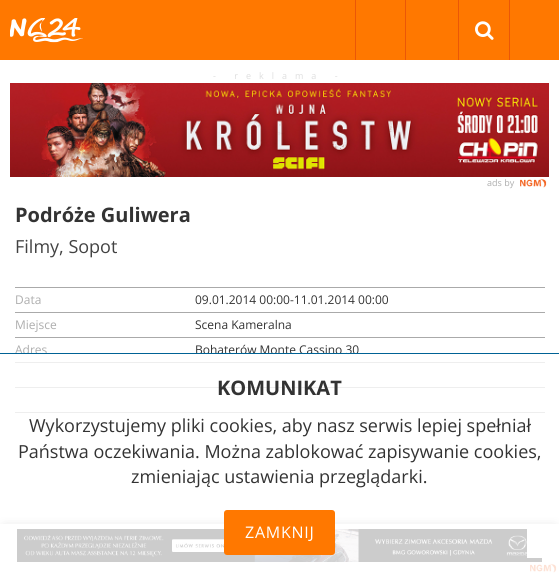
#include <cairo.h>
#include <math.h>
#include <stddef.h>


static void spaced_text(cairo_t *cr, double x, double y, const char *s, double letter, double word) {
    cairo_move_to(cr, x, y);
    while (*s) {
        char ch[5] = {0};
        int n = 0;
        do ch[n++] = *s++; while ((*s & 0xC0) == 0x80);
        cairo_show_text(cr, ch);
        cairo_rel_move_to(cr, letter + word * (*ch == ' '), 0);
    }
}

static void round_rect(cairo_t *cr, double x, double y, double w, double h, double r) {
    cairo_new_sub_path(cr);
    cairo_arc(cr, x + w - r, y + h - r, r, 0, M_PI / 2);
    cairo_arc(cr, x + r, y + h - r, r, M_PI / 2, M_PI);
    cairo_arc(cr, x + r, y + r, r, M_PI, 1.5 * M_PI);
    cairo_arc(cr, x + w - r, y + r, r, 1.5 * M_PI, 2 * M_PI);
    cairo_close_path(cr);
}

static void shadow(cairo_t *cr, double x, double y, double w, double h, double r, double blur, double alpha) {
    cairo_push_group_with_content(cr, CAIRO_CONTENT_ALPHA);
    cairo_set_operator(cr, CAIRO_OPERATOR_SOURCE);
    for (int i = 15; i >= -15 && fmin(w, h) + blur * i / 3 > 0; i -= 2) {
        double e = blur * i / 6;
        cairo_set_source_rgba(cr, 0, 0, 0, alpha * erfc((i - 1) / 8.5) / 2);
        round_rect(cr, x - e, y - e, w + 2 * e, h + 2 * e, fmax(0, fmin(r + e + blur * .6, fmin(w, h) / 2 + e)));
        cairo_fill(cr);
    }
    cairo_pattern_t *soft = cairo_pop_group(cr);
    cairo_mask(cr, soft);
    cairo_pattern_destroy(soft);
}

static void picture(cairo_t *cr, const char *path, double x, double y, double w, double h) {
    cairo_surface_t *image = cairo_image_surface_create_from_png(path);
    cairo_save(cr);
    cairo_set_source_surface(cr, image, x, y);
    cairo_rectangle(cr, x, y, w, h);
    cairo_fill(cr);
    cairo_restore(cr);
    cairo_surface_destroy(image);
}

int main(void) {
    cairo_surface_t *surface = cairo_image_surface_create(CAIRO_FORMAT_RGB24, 559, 575);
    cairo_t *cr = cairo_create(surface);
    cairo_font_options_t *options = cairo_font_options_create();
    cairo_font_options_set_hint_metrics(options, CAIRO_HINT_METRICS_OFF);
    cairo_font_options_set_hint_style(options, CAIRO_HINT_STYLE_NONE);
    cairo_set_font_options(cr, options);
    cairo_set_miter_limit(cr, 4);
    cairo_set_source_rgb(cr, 1, 1, 1);
    cairo_paint(cr);
    cairo_set_source_rgb(cr, 1, 0.471, 0);
    cairo_rectangle(cr, 0, 0, 559, 60);
    cairo_fill(cr);
    cairo_set_source_rgb(cr, 0.918, 0.341, 0.024);
    cairo_rectangle(cr, 355, 0, 1, 60);
    cairo_fill(cr);
    cairo_rectangle(cr, 405, 0, 1, 60);
    cairo_fill(cr);
    cairo_rectangle(cr, 509, 0, 1, 60);
    cairo_fill(cr);
    picture(cr, "img1.png", 10, 18, 73, 25);
    cairo_rectangle(cr, 458, 0, 1, 60);
    cairo_fill(cr);
    picture(cr, "img2.png", 475, 21, 19, 19);
    cairo_select_font_face(cr, "Open Sans", CAIRO_FONT_SLANT_NORMAL, CAIRO_FONT_WEIGHT_NORMAL);
    cairo_set_font_size(cr, 9);
    cairo_set_source_rgb(cr, 0.871, 0.871, 0.871);
    spaced_text(cr, 213, 79, "- reklama -", 8, 0);
    picture(cr, "img3.png", 10, 83, 539, 94);
    cairo_set_source_rgb(cr, 0.678, 0.678, 0.678);
    cairo_move_to(cr, 487, 186);
    cairo_show_text(cr, "ads by");
    picture(cr, "img4.png", 520, 178, 27, 10);
    cairo_select_font_face(cr, "Open Sans", CAIRO_FONT_SLANT_NORMAL, CAIRO_FONT_WEIGHT_BOLD);
    cairo_set_font_size(cr, 20);
    cairo_set_source_rgb(cr, 0.2, 0.2, 0.2);
    cairo_move_to(cr, 15, 222);
    cairo_show_text(cr, "Podróże Guliwera");
    cairo_select_font_face(cr, "Open Sans", CAIRO_FONT_SLANT_NORMAL, CAIRO_FONT_WEIGHT_NORMAL);
    cairo_set_font_size(cr, 18);
    cairo_set_source_rgb(cr, 0.259, 0.259, 0.259);
    cairo_move_to(cr, 15, 253);
    cairo_show_text(cr, "Filmy, Sopot");
    cairo_set_source_rgb(cr, 0.667, 0.667, 0.667);
    cairo_rectangle(cr, 15, 287, 530, 1);
    cairo_fill(cr);
    cairo_set_font_size(cr, 12);
    cairo_set_source_rgb(cr, 0.678, 0.678, 0.678);
    cairo_move_to(cr, 15, 304);
    cairo_show_text(cr, "Data");
    cairo_set_source_rgb(cr, 0.2, 0.2, 0.2);
    cairo_move_to(cr, 195, 304);
    cairo_show_text(cr, "09.01.2014 00:00-11.01.2014 00:00");
    cairo_set_source_rgb(cr, 0.667, 0.667, 0.667);
    cairo_rectangle(cr, 15, 312, 530, 1);
    cairo_fill(cr);
    cairo_set_source_rgb(cr, 0.678, 0.678, 0.678);
    cairo_move_to(cr, 15, 329);
    cairo_show_text(cr, "Miejsce");
    cairo_set_source_rgb(cr, 0.2, 0.2, 0.2);
    cairo_move_to(cr, 195, 329);
    cairo_show_text(cr, "Scena Kameralna");
    cairo_set_source_rgb(cr, 0.667, 0.667, 0.667);
    cairo_rectangle(cr, 15, 337, 530, 1);
    cairo_fill(cr);
    cairo_set_source_rgb(cr, 0.678, 0.678, 0.678);
    cairo_move_to(cr, 15, 354);
    cairo_show_text(cr, "Adres");
    cairo_set_source_rgb(cr, 0.2, 0.2, 0.2);
    cairo_move_to(cr, 195, 354);
    cairo_show_text(cr, "Bohaterów Monte Cassino 30");
    cairo_set_source_rgb(cr, 0.667, 0.667, 0.667);
    cairo_rectangle(cr, 15, 362, 530, 1);
    cairo_fill(cr);
    cairo_rectangle(cr, 15, 387, 530, 1);
    cairo_fill(cr);
    cairo_rectangle(cr, 15, 412, 530, 1);
    cairo_fill(cr);
    cairo_save(cr);
    cairo_rectangle(cr, 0, 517, 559, 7);
    cairo_clip(cr);
    cairo_set_source_rgb(cr, 0, 0, 0);
    shadow(cr, 5, 529, 549, 41, 0, 6, 1);
    cairo_restore(cr);
    picture(cr, "img5.png", 17, 529, 525, 33);
    cairo_set_source_rgb(cr, 1, 1, 1);
    cairo_rectangle(cr, 527, 529, 15, 29);
    cairo_fill(cr);
    picture(cr, "img6.png", 530, 563, 27, 10);
    cairo_set_source_rgba(cr, 1, 1, 1, 0.8);
    cairo_rectangle(cr, 0, 354, 559, 219);
    cairo_fill(cr);
    cairo_set_source_rgb(cr, 0, 0.384, 0.584);
    cairo_rectangle(cr, 0, 353, 559, 1);
    cairo_fill(cr);
    cairo_select_font_face(cr, "Open Sans", CAIRO_FONT_SLANT_NORMAL, CAIRO_FONT_WEIGHT_BOLD);
    cairo_set_font_size(cr, 20);
    cairo_set_source_rgb(cr, 0.2, 0.2, 0.2);
    cairo_move_to(cr, 217, 395);
    cairo_show_text(cr, "KOMUNIKAT");
    cairo_select_font_face(cr, "Open Sans", CAIRO_FONT_SLANT_NORMAL, CAIRO_FONT_WEIGHT_NORMAL);
    cairo_set_font_size(cr, 18);
    cairo_move_to(cr, 29, 432);
    cairo_show_text(cr, "Wykorzystujemy pliki cookies, aby nasz serwis lepiej spełniał");
    cairo_move_to(cr, 18, 458);
    cairo_show_text(cr, "Państwa oczekiwania. Można zablokować zapisywanie cookies,");
    cairo_move_to(cr, 131, 483);
    cairo_show_text(cr, "zmieniając ustawienia przeglądarki.");
    cairo_set_source_rgb(cr, 1, 0.471, 0);
    round_rect(cr, 224, 510, 111, 45, 3);
    cairo_fill(cr);
    cairo_set_font_size(cr, 16);
    cairo_set_source_rgb(cr, 1, 1, 1);
    spaced_text(cr, 245, 538, "ZAMKNIJ", 0.75, 0);
    cairo_surface_write_to_png(surface, "page.png");
    cairo_font_options_destroy(options);
    cairo_destroy(cr);
    cairo_surface_destroy(surface);
    return 0;
}
